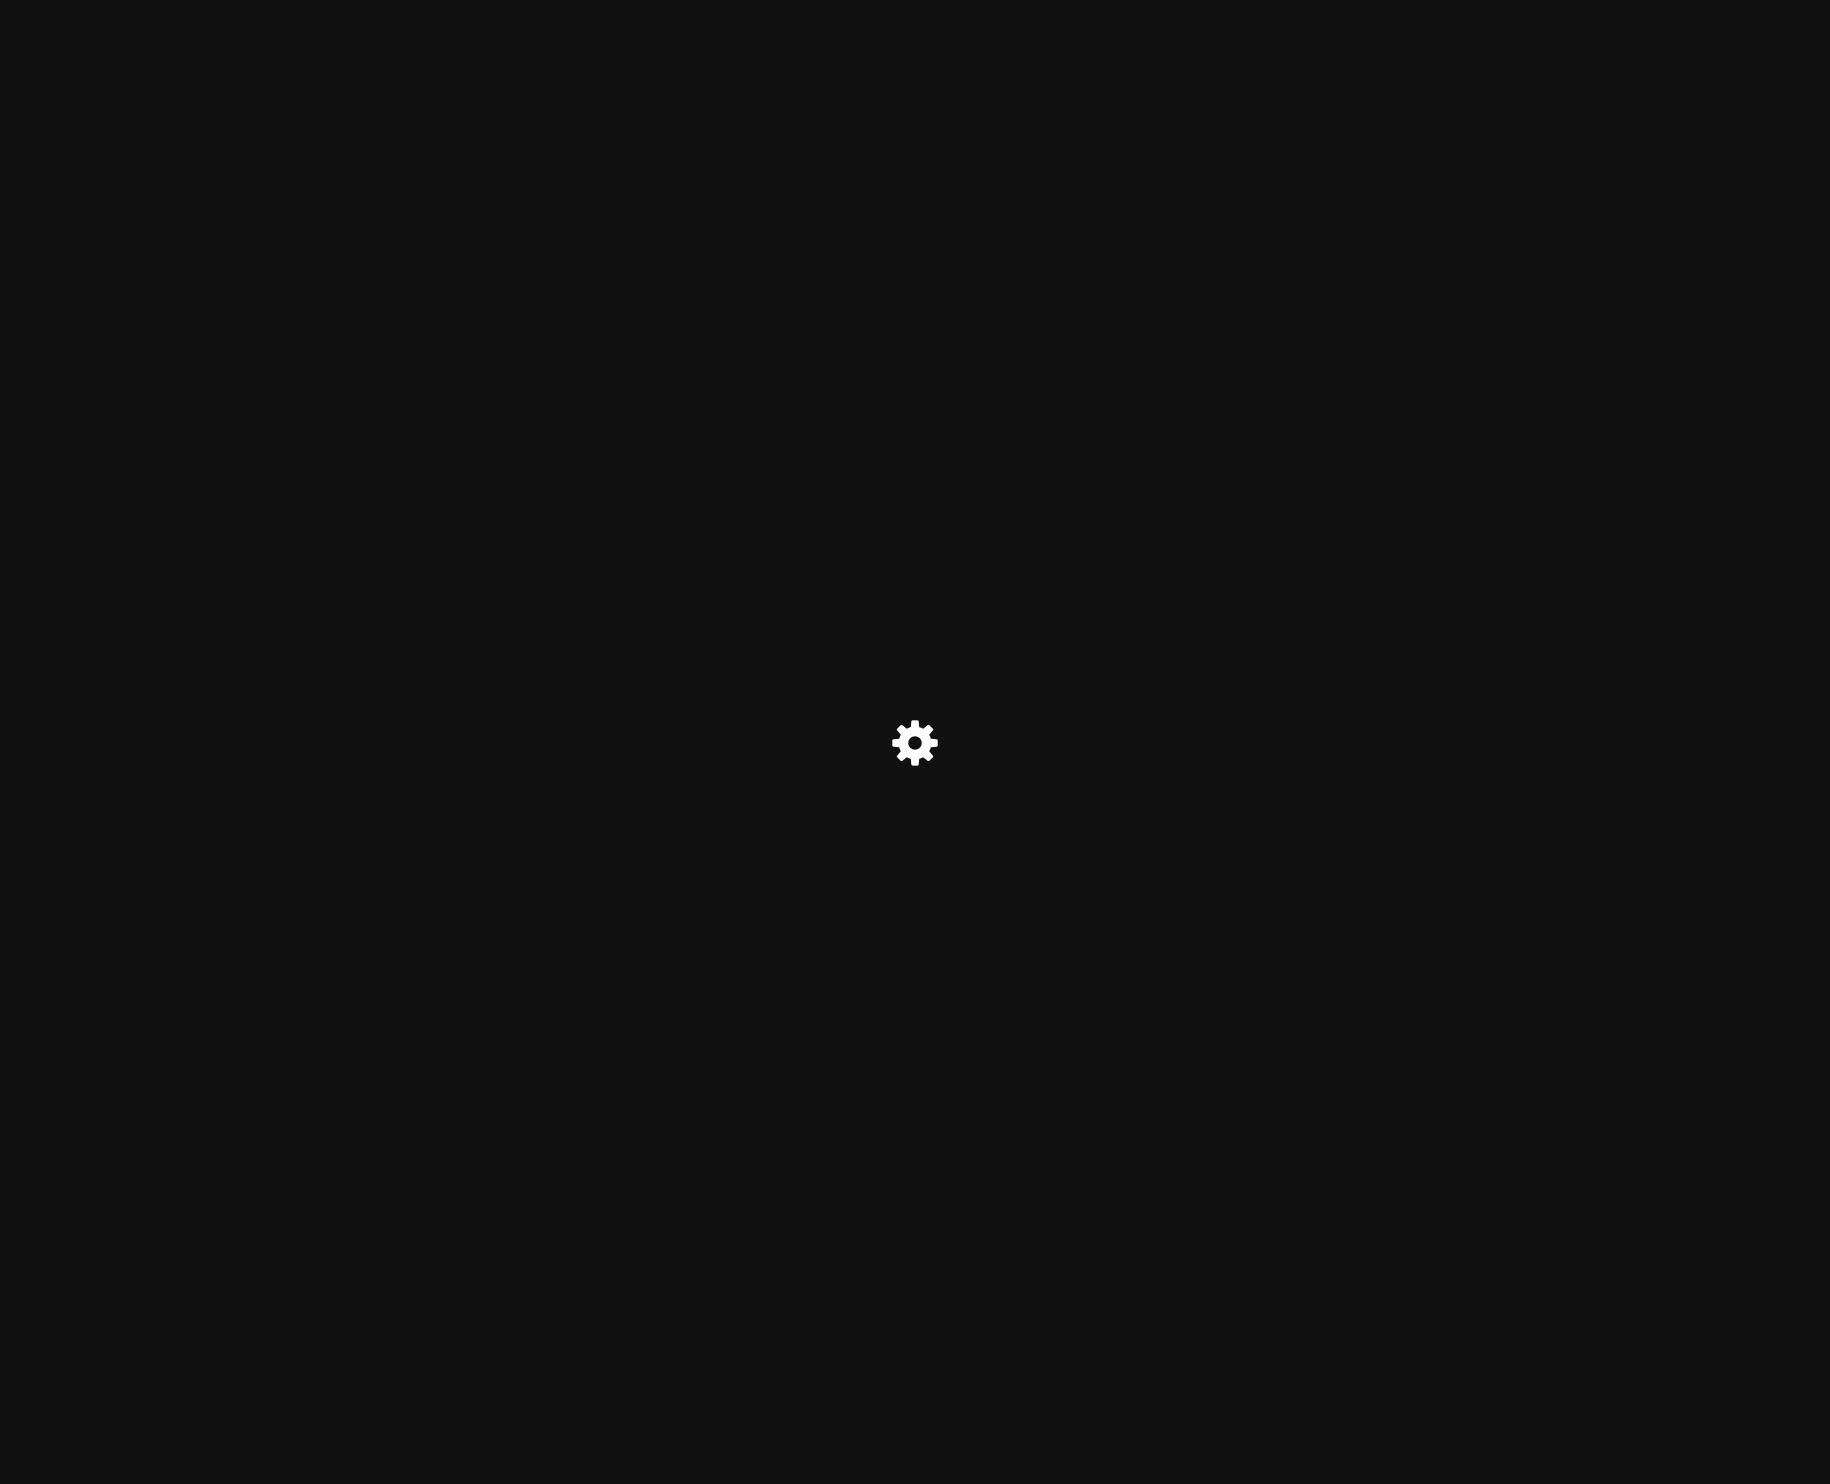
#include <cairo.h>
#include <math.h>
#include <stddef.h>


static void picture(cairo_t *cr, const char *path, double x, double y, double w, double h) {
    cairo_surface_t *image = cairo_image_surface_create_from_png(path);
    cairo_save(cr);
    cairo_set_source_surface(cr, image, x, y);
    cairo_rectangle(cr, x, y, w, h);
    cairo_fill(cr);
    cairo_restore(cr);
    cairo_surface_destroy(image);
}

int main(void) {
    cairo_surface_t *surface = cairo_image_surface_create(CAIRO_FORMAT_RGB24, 1830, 1484);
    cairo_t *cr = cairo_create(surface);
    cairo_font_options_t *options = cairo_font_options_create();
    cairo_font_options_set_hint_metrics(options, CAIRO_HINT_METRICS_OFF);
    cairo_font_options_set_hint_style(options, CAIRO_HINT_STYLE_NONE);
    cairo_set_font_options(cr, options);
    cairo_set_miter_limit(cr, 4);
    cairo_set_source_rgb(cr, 0.067, 0.067, 0.067);
    cairo_paint(cr);
    picture(cr, "img1.png", 892, 720, 46, 46);
    cairo_surface_write_to_png(surface, "page.png");
    cairo_font_options_destroy(options);
    cairo_destroy(cr);
    cairo_surface_destroy(surface);
    return 0;
}
